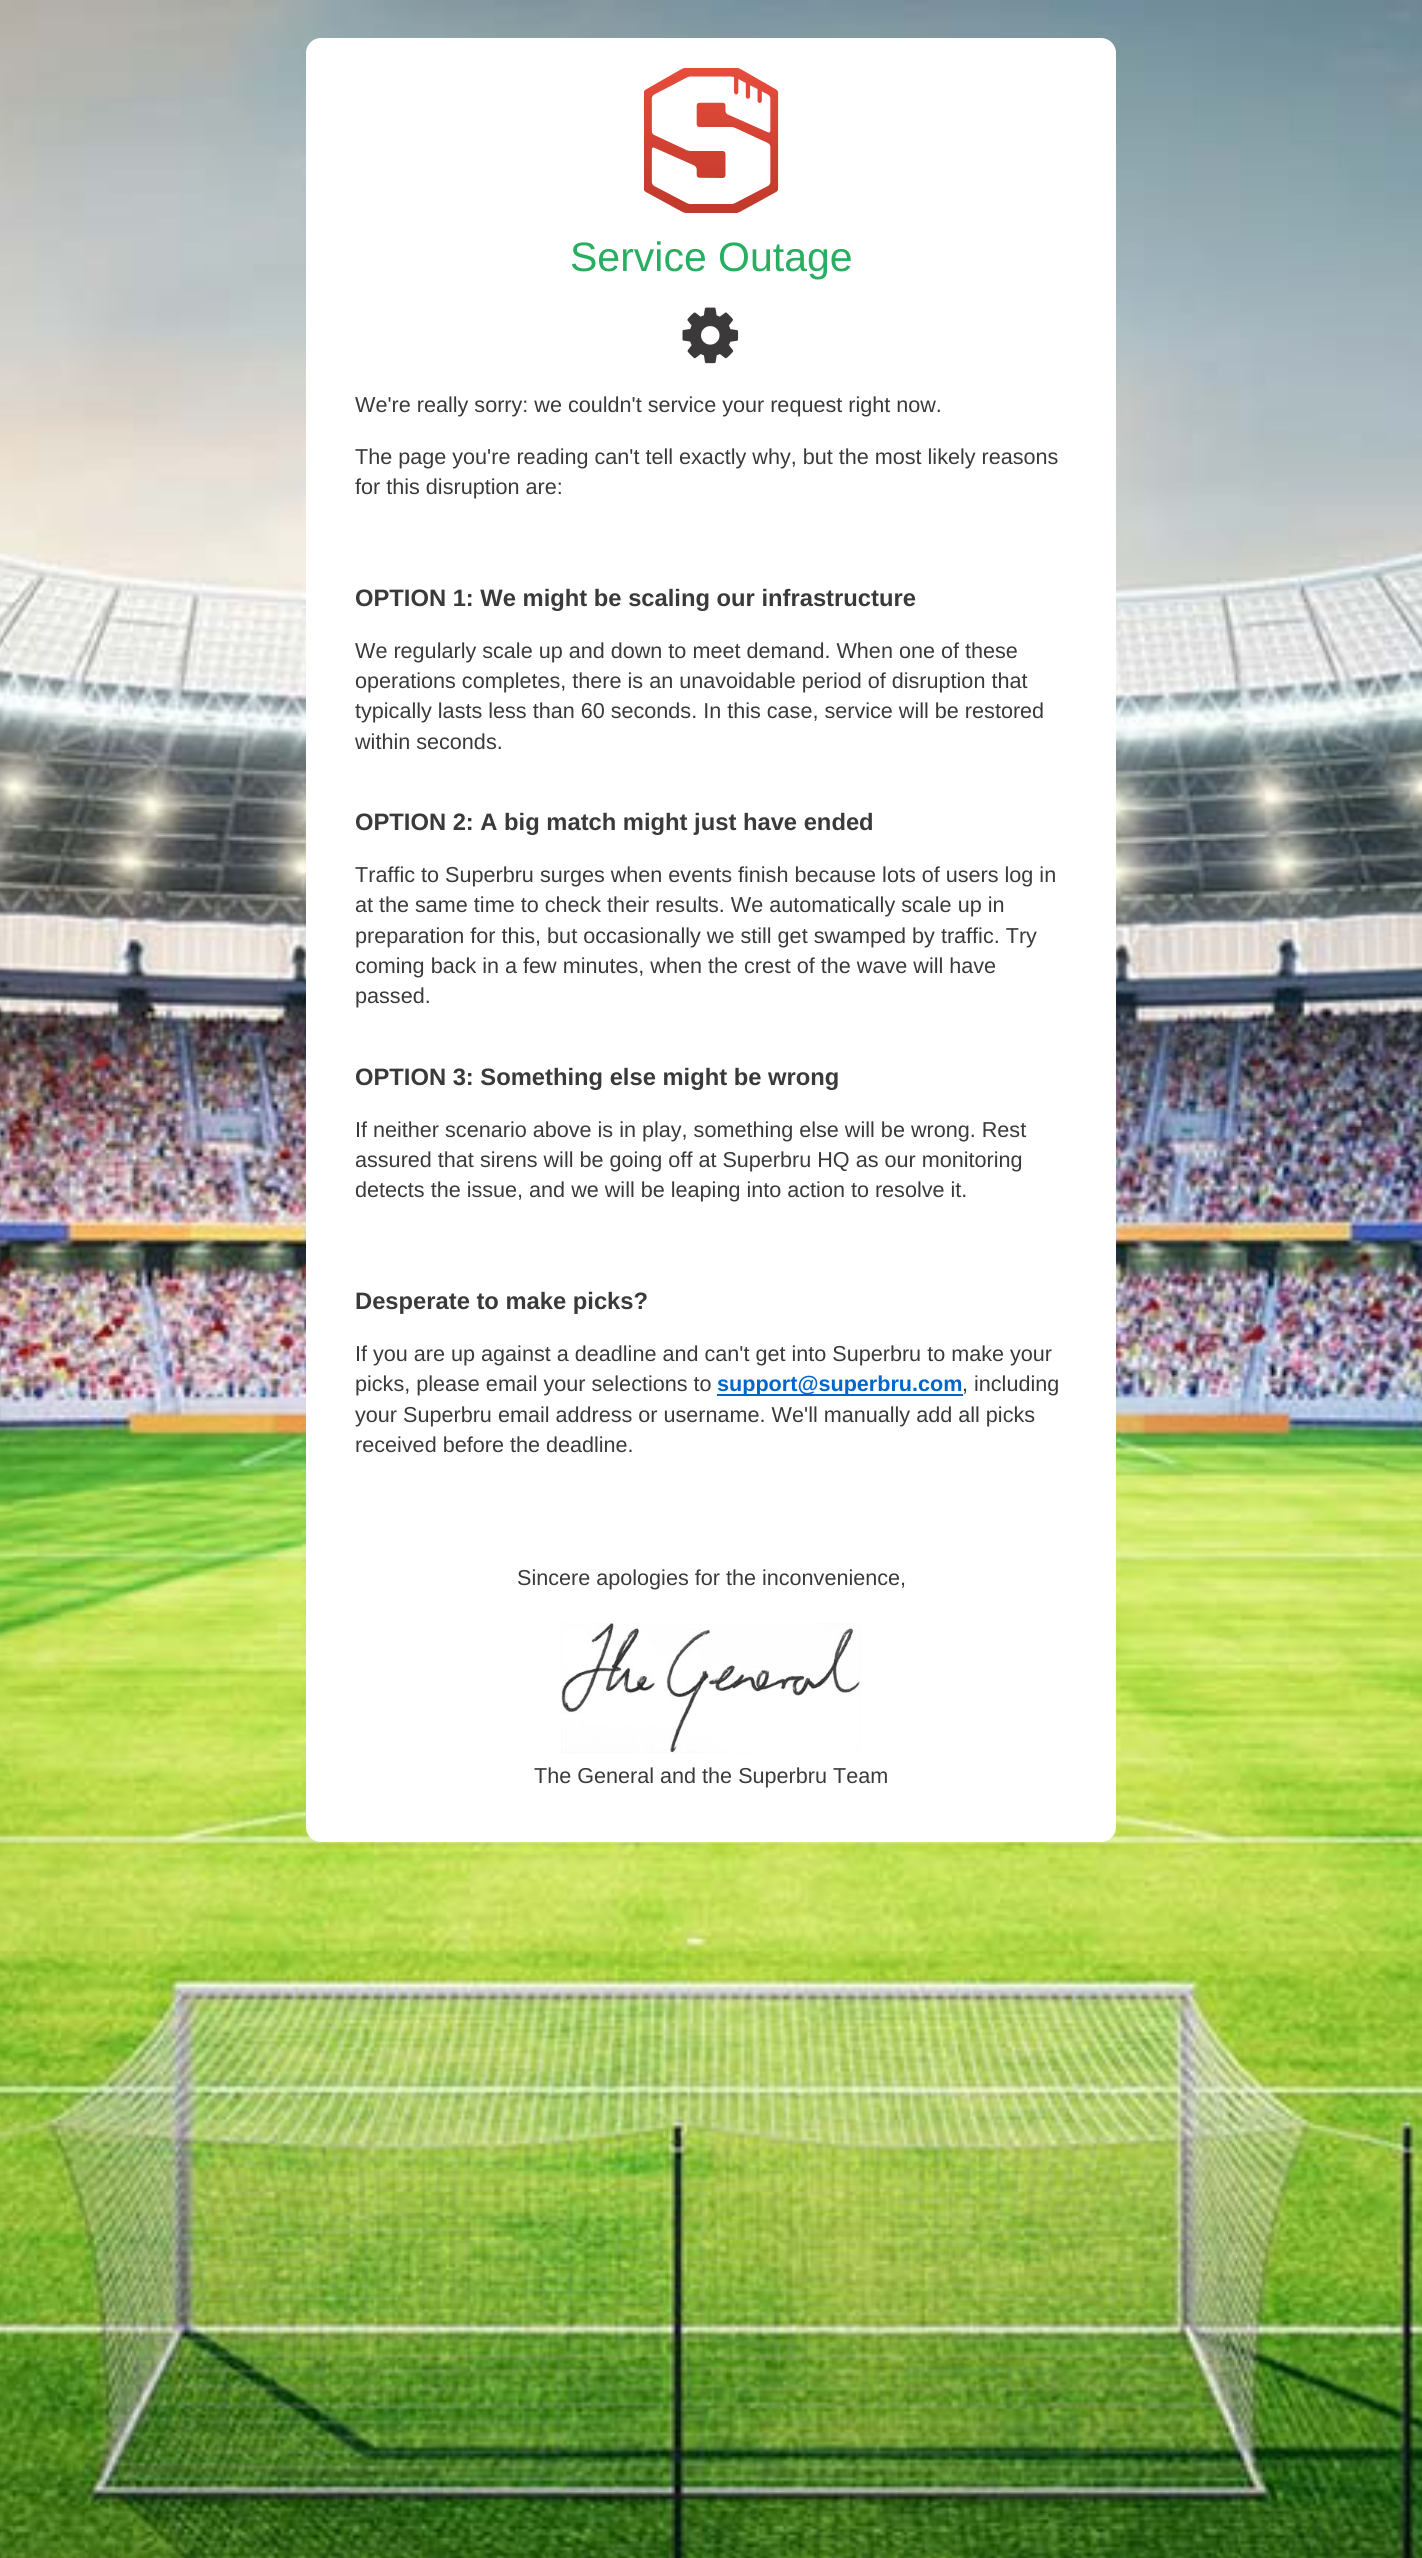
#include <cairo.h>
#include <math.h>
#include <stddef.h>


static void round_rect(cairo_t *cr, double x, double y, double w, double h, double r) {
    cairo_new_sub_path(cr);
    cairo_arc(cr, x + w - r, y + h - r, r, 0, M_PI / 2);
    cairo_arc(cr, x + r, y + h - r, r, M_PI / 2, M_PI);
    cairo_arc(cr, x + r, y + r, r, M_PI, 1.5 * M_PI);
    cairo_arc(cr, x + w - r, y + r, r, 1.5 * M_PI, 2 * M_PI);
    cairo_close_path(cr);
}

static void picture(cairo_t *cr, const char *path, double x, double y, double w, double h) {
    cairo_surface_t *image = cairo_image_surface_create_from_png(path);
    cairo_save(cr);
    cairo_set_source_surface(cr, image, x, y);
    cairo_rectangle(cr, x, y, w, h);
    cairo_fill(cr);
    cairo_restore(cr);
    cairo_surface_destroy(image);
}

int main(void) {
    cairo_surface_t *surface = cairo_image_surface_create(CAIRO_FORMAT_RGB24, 1422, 2558);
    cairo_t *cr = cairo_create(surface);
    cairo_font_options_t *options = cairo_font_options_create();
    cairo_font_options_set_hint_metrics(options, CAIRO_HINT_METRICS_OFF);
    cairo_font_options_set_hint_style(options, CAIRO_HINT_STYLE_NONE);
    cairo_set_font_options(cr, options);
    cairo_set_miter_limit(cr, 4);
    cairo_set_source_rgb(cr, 1, 1, 1);
    cairo_paint(cr);
    picture(cr, "img1.png", 0, 0, 1422, 2558);
    cairo_set_source_rgb(cr, 1, 1, 1);
    round_rect(cr, 306, 38, 810, 1804, 15);
    cairo_fill(cr);
    picture(cr, "img2.png", 644, 68, 135, 145);
    cairo_select_font_face(cr, "Liberation Sans", CAIRO_FONT_SLANT_NORMAL, CAIRO_FONT_WEIGHT_NORMAL);
    cairo_set_font_size(cr, 41);
    cairo_set_source_rgb(cr, 0.153, 0.682, 0.376);
    cairo_move_to(cr, 570, 271);
    cairo_show_text(cr, "Service Outage");
    picture(cr, "img3.png", 682, 307, 57, 57);
    cairo_set_font_size(cr, 21.6);
    cairo_set_source_rgb(cr, 0.231, 0.224, 0.224);
    cairo_move_to(cr, 355, 412);
    cairo_show_text(cr, "We're really sorry: we couldn't service your request right now.");
    cairo_move_to(cr, 355, 464);
    cairo_show_text(cr, "The page you're reading can't tell exactly why, but the most likely reasons");
    cairo_move_to(cr, 355, 494);
    cairo_show_text(cr, "for this disruption are:");
    cairo_select_font_face(cr, "Liberation Sans", CAIRO_FONT_SLANT_NORMAL, CAIRO_FONT_WEIGHT_BOLD);
    cairo_set_font_size(cr, 23.75);
    cairo_move_to(cr, 355, 606);
    cairo_show_text(cr, "OPTION 1: We might be scaling our infrastructure");
    cairo_select_font_face(cr, "Liberation Sans", CAIRO_FONT_SLANT_NORMAL, CAIRO_FONT_WEIGHT_NORMAL);
    cairo_set_font_size(cr, 21.6);
    cairo_move_to(cr, 355, 658);
    cairo_show_text(cr, "We regularly scale up and down to meet demand. When one of these");
    cairo_move_to(cr, 355, 688);
    cairo_show_text(cr, "operations completes, there is an unavoidable period of disruption that");
    cairo_move_to(cr, 355, 718);
    cairo_show_text(cr, "typically lasts less than 60 seconds. In this case, service will be restored");
    cairo_move_to(cr, 355, 749);
    cairo_show_text(cr, "within seconds.");
    cairo_select_font_face(cr, "Liberation Sans", CAIRO_FONT_SLANT_NORMAL, CAIRO_FONT_WEIGHT_BOLD);
    cairo_set_font_size(cr, 23.75);
    cairo_move_to(cr, 355, 830);
    cairo_show_text(cr, "OPTION 2: A big match might just have ended");
    cairo_select_font_face(cr, "Liberation Sans", CAIRO_FONT_SLANT_NORMAL, CAIRO_FONT_WEIGHT_NORMAL);
    cairo_set_font_size(cr, 21.6);
    cairo_move_to(cr, 355, 882);
    cairo_show_text(cr, "Traffic to Superbru surges when events finish because lots of users log in");
    cairo_move_to(cr, 355, 912);
    cairo_show_text(cr, "at the same time to check their results. We automatically scale up in");
    cairo_move_to(cr, 355, 943);
    cairo_show_text(cr, "preparation for this, but occasionally we still get swamped by traffic. Try");
    cairo_move_to(cr, 355, 973);
    cairo_show_text(cr, "coming back in a few minutes, when the crest of the wave will have");
    cairo_move_to(cr, 355, 1003);
    cairo_show_text(cr, "passed.");
    cairo_select_font_face(cr, "Liberation Sans", CAIRO_FONT_SLANT_NORMAL, CAIRO_FONT_WEIGHT_BOLD);
    cairo_set_font_size(cr, 23.75);
    cairo_move_to(cr, 355, 1085);
    cairo_show_text(cr, "OPTION 3: Something else might be wrong");
    cairo_select_font_face(cr, "Liberation Sans", CAIRO_FONT_SLANT_NORMAL, CAIRO_FONT_WEIGHT_NORMAL);
    cairo_set_font_size(cr, 21.6);
    cairo_move_to(cr, 355, 1137);
    cairo_show_text(cr, "If neither scenario above is in play, something else will be wrong. Rest");
    cairo_move_to(cr, 355, 1167);
    cairo_show_text(cr, "assured that sirens will be going off at Superbru HQ as our monitoring");
    cairo_move_to(cr, 355, 1197);
    cairo_show_text(cr, "detects the issue, and we will be leaping into action to resolve it.");
    cairo_select_font_face(cr, "Liberation Sans", CAIRO_FONT_SLANT_NORMAL, CAIRO_FONT_WEIGHT_BOLD);
    cairo_set_font_size(cr, 23.75);
    cairo_move_to(cr, 355, 1309);
    cairo_show_text(cr, "Desperate to make picks?");
    cairo_select_font_face(cr, "Liberation Sans", CAIRO_FONT_SLANT_NORMAL, CAIRO_FONT_WEIGHT_NORMAL);
    cairo_set_font_size(cr, 21.6);
    cairo_move_to(cr, 355, 1361);
    cairo_show_text(cr, "If you are up against a deadline and can't get into Superbru to make your");
    cairo_move_to(cr, 355, 1391);
    cairo_show_text(cr, "picks, please email your selections to");
    cairo_set_source_rgb(cr, 0, 0.4, 0.8);
    cairo_rectangle(cr, 717, 1394, 246, 2);
    cairo_fill(cr);
    cairo_select_font_face(cr, "Liberation Sans", CAIRO_FONT_SLANT_NORMAL, CAIRO_FONT_WEIGHT_BOLD);
    cairo_move_to(cr, 717, 1391);
    cairo_show_text(cr, "support@superbru.com");
    cairo_select_font_face(cr, "Liberation Sans", CAIRO_FONT_SLANT_NORMAL, CAIRO_FONT_WEIGHT_NORMAL);
    cairo_set_source_rgb(cr, 0.231, 0.224, 0.224);
    cairo_move_to(cr, 962, 1391);
    cairo_show_text(cr, ", including");
    cairo_move_to(cr, 355, 1422);
    cairo_show_text(cr, "your Superbru email address or username. We'll manually add all picks");
    cairo_move_to(cr, 355, 1452);
    cairo_show_text(cr, "received before the deadline.");
    cairo_move_to(cr, 517, 1585);
    cairo_show_text(cr, "Sincere apologies for the inconvenience,");
    picture(cr, "img4.png", 561, 1623, 300, 131);
    cairo_move_to(cr, 534, 1783);
    cairo_show_text(cr, "The General and the Superbru Team");
    cairo_surface_write_to_png(surface, "page.png");
    cairo_font_options_destroy(options);
    cairo_destroy(cr);
    cairo_surface_destroy(surface);
    return 0;
}
